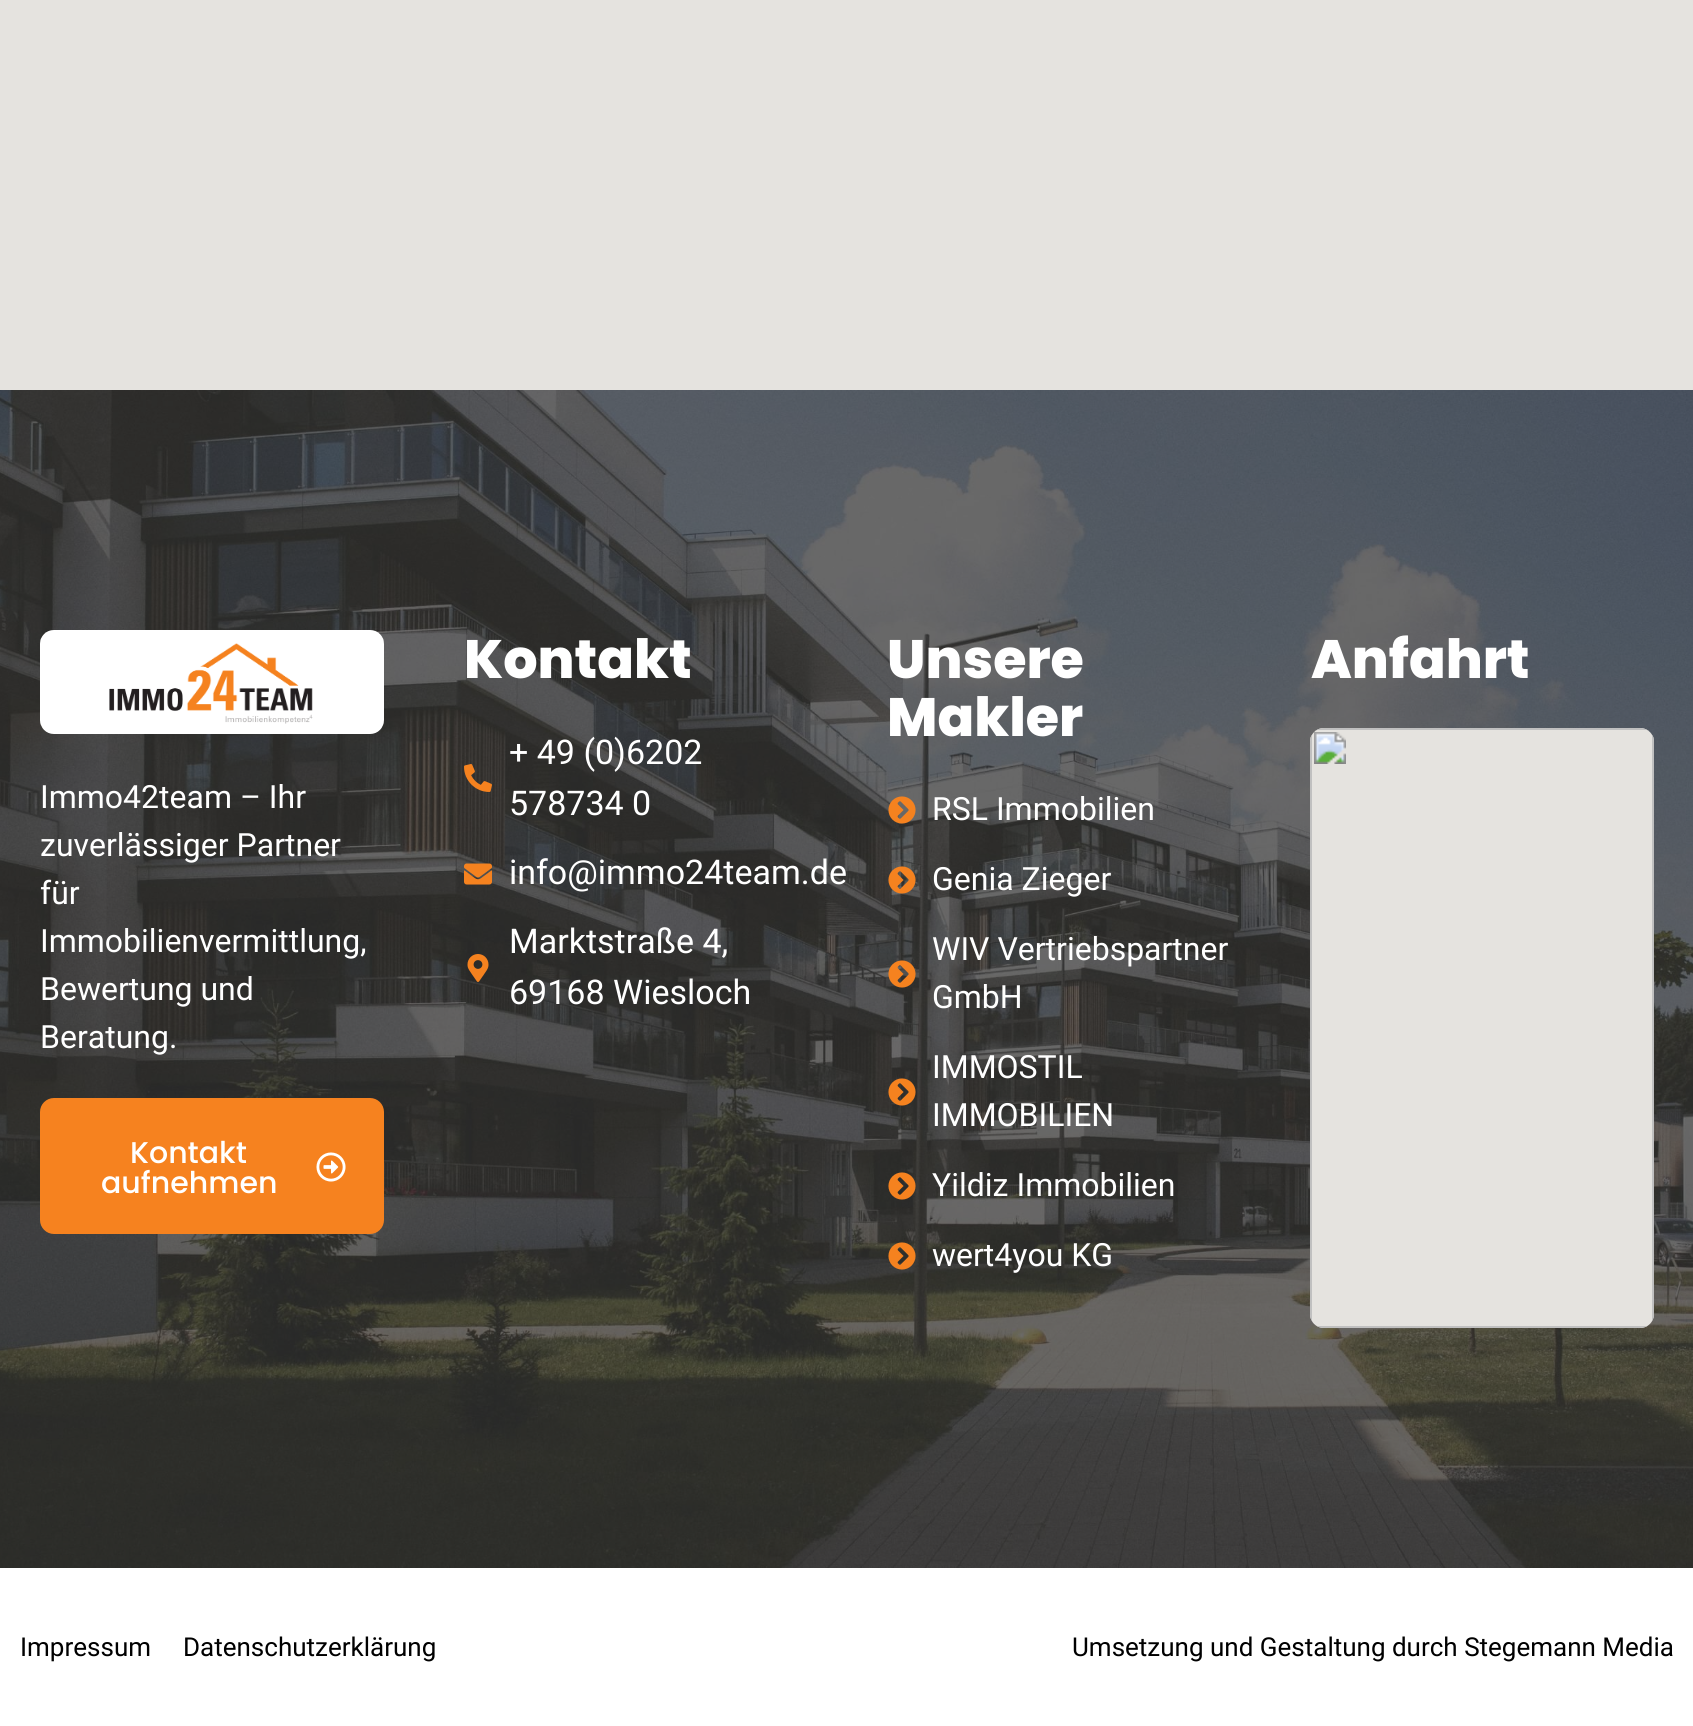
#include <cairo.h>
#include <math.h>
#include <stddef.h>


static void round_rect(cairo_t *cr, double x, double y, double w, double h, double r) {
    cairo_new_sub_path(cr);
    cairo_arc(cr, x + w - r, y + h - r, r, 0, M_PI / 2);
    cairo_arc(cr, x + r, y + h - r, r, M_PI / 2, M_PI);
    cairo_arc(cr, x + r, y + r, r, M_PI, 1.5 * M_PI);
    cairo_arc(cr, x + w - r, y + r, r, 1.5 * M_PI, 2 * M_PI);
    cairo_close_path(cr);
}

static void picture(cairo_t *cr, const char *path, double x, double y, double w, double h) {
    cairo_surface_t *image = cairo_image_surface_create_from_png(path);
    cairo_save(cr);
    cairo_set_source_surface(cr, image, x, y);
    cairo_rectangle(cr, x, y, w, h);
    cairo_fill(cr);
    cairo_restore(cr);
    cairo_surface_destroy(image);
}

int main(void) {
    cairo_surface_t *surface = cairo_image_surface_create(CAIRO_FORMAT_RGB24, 1693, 1726);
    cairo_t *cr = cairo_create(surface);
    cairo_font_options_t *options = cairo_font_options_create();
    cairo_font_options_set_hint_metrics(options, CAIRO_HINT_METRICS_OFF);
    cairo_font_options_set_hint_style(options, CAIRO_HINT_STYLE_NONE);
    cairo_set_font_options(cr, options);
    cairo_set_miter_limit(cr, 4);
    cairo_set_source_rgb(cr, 1, 1, 1);
    cairo_paint(cr);
    cairo_set_source_rgb(cr, 0.898, 0.89, 0.875);
    cairo_rectangle(cr, 0, 0, 1693, 390);
    cairo_fill(cr);
    picture(cr, "img1.png", 0, 390, 1693, 1178);
    picture(cr, "img2.png", 40, 630, 344, 104);
    cairo_select_font_face(cr, "Roboto", CAIRO_FONT_SLANT_NORMAL, CAIRO_FONT_WEIGHT_NORMAL);
    cairo_set_font_size(cr, 32);
    cairo_set_source_rgb(cr, 1, 1, 1);
    cairo_move_to(cr, 40, 808);
    cairo_show_text(cr, "Immo42team – Ihr");
    cairo_move_to(cr, 40, 856);
    cairo_show_text(cr, "zuverlässiger Partner");
    cairo_move_to(cr, 40, 904);
    cairo_show_text(cr, "für");
    cairo_move_to(cr, 40, 952);
    cairo_show_text(cr, "Immobilienvermittlung,");
    cairo_move_to(cr, 40, 1000);
    cairo_show_text(cr, "Bewertung und");
    cairo_move_to(cr, 40, 1048);
    cairo_show_text(cr, "Beratung.");
    cairo_set_source_rgb(cr, 0.961, 0.51, 0.122);
    round_rect(cr, 40, 1098, 344, 136, 14);
    cairo_fill(cr);
    cairo_select_font_face(cr, "Poppins Medium", CAIRO_FONT_SLANT_NORMAL, CAIRO_FONT_WEIGHT_NORMAL);
    cairo_set_font_size(cr, 30);
    cairo_set_source_rgb(cr, 1, 1, 1);
    cairo_move_to(cr, 130, 1163);
    cairo_show_text(cr, "Kontakt");
    cairo_move_to(cr, 101, 1193);
    cairo_show_text(cr, "aufnehmen");
    picture(cr, "img3.png", 316, 1152, 30, 30);
    cairo_select_font_face(cr, "Poppins ExtraBold", CAIRO_FONT_SLANT_NORMAL, CAIRO_FONT_WEIGHT_NORMAL);
    cairo_set_font_size(cr, 54);
    cairo_move_to(cr, 464, 678);
    cairo_show_text(cr, "Kontakt");
    picture(cr, "img4.png", 464, 764, 28, 28);
    cairo_select_font_face(cr, "Roboto", CAIRO_FONT_SLANT_NORMAL, CAIRO_FONT_WEIGHT_NORMAL);
    cairo_set_font_size(cr, 34);
    cairo_move_to(cr, 509, 764);
    cairo_show_text(cr, "+ 49 (0)6202");
    cairo_move_to(cr, 509, 815);
    cairo_show_text(cr, "578734 0");
    picture(cr, "img5.png", 464, 863, 28, 22);
    cairo_move_to(cr, 509, 884);
    cairo_show_text(cr, "info@immo24team.de");
    picture(cr, "img6.png", 467, 954, 22, 28);
    cairo_move_to(cr, 509, 953);
    cairo_show_text(cr, "Marktstraße 4,");
    cairo_move_to(cr, 509, 1004);
    cairo_show_text(cr, "69168 Wiesloch");
    cairo_select_font_face(cr, "Poppins ExtraBold", CAIRO_FONT_SLANT_NORMAL, CAIRO_FONT_WEIGHT_NORMAL);
    cairo_set_font_size(cr, 54);
    cairo_move_to(cr, 887, 678);
    cairo_show_text(cr, "Unsere");
    cairo_move_to(cr, 887, 736);
    cairo_show_text(cr, "Makler");
    picture(cr, "img7.png", 888, 796, 28, 28);
    cairo_select_font_face(cr, "Roboto", CAIRO_FONT_SLANT_NORMAL, CAIRO_FONT_WEIGHT_NORMAL);
    cairo_set_font_size(cr, 32);
    cairo_move_to(cr, 932, 820);
    cairo_show_text(cr, "RSL Immobilien");
    picture(cr, "img8.png", 888, 866, 28, 28);
    cairo_move_to(cr, 932, 890);
    cairo_show_text(cr, "Genia Zieger");
    picture(cr, "img9.png", 888, 960, 28, 28);
    cairo_move_to(cr, 932, 960);
    cairo_show_text(cr, "WIV Vertriebspartner");
    cairo_move_to(cr, 932, 1008);
    cairo_show_text(cr, "GmbH");
    picture(cr, "img10.png", 888, 1078, 28, 28);
    cairo_move_to(cr, 932, 1078);
    cairo_show_text(cr, "IMMOSTIL");
    cairo_move_to(cr, 932, 1126);
    cairo_show_text(cr, "IMMOBILIEN");
    picture(cr, "img11.png", 888, 1172, 28, 28);
    cairo_move_to(cr, 932, 1196);
    cairo_show_text(cr, "Yildiz Immobilien");
    picture(cr, "img12.png", 888, 1242, 28, 28);
    cairo_move_to(cr, 932, 1266);
    cairo_show_text(cr, "wert4you KG");
    cairo_select_font_face(cr, "Poppins ExtraBold", CAIRO_FONT_SLANT_NORMAL, CAIRO_FONT_WEIGHT_NORMAL);
    cairo_set_font_size(cr, 54);
    cairo_move_to(cr, 1311, 678);
    cairo_show_text(cr, "Anfahrt");
    picture(cr, "img13.png", 1310, 728, 344, 600);
    cairo_select_font_face(cr, "Roboto", CAIRO_FONT_SLANT_NORMAL, CAIRO_FONT_WEIGHT_NORMAL);
    cairo_set_font_size(cr, 26);
    cairo_set_source_rgb(cr, 0, 0, 0);
    cairo_move_to(cr, 20, 1656);
    cairo_show_text(cr, "Impressum");
    cairo_move_to(cr, 183, 1656);
    cairo_show_text(cr, "Datenschutzerklärung");
    cairo_move_to(cr, 1072, 1656);
    cairo_show_text(cr, "Umsetzung und Gestaltung durch Stegemann Media");
    cairo_surface_write_to_png(surface, "page.png");
    cairo_font_options_destroy(options);
    cairo_destroy(cr);
    cairo_surface_destroy(surface);
    return 0;
}
